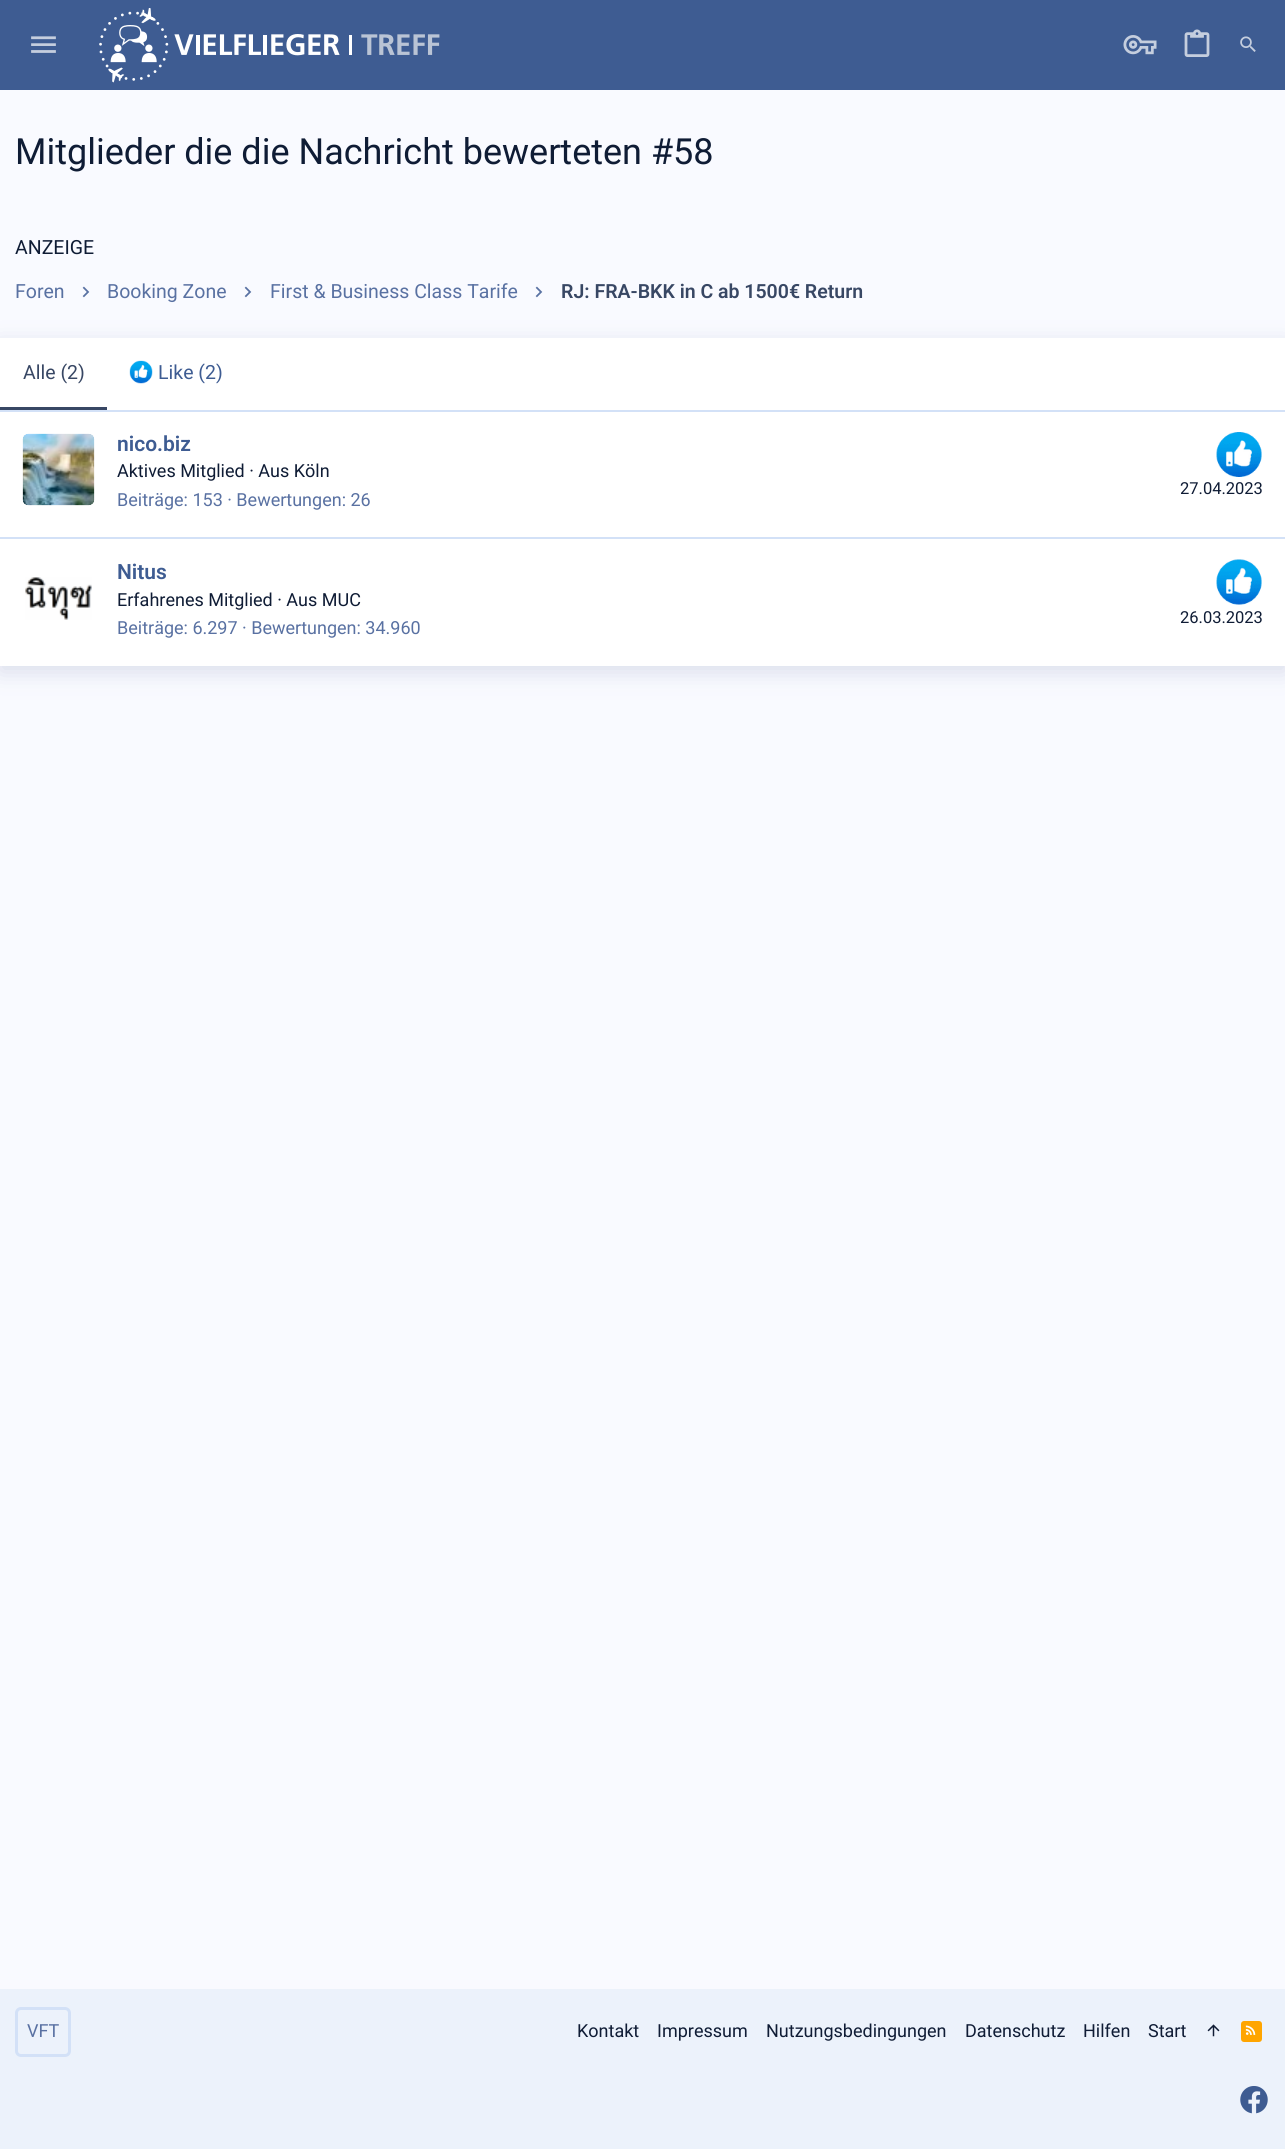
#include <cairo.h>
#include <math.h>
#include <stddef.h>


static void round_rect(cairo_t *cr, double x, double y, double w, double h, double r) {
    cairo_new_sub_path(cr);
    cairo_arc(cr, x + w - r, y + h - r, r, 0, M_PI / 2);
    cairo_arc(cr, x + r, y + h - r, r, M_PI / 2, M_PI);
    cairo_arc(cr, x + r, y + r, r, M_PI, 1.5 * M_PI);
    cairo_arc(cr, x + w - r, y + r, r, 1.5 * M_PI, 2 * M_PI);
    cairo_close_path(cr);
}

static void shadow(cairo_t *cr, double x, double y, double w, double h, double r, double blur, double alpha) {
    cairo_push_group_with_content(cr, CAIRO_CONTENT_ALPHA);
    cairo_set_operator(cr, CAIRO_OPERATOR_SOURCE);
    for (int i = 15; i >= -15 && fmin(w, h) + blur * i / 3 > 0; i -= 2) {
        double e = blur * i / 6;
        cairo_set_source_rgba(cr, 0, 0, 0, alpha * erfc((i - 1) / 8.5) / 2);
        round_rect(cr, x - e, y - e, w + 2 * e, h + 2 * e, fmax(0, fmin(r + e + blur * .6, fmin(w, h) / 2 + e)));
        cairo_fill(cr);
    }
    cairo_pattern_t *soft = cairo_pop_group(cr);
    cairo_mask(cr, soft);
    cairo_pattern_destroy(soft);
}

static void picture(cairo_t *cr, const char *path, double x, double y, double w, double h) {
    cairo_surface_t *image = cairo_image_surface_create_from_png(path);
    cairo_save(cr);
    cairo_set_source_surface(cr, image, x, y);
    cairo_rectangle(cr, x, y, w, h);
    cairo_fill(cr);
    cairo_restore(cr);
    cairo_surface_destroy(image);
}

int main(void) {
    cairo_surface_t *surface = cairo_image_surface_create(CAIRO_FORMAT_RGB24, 1285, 2149);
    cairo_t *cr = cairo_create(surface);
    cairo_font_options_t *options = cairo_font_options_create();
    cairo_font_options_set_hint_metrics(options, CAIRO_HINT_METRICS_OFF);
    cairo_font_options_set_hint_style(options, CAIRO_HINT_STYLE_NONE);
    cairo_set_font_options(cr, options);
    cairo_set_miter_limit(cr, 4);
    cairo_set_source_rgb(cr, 0.973, 0.98, 1);
    cairo_paint(cr);
    cairo_set_source_rgb(cr, 0.243, 0.361, 0.573);
    cairo_rectangle(cr, 0, 0, 1285, 90);
    cairo_fill(cr);
    picture(cr, "img1.png", 31, 36, 25, 17);
    picture(cr, "img2.png", 99, 8, 341, 75);
    picture(cr, "img3.png", 1123, 35, 34, 20);
    picture(cr, "img4.png", 1184, 29, 26, 28);
    picture(cr, "img5.png", 1240, 36, 16, 16);
    cairo_select_font_face(cr, "Roboto", CAIRO_FONT_SLANT_NORMAL, CAIRO_FONT_WEIGHT_NORMAL);
    cairo_set_font_size(cr, 36);
    cairo_set_source_rgb(cr, 0.059, 0.11, 0.208);
    cairo_move_to(cr, 15, 164);
    cairo_show_text(cr, "Mitglieder die die Nachricht bewerteten #58");
    cairo_set_font_size(cr, 19.5);
    cairo_move_to(cr, 15, 254);
    cairo_show_text(cr, "ANZEIGE");
    cairo_set_source_rgb(cr, 0.349, 0.443, 0.635);
    cairo_move_to(cr, 15, 298);
    cairo_show_text(cr, "Foren");
    picture(cr, "img6.png", 82, 286, 8, 12);
    cairo_move_to(cr, 107, 298);
    cairo_show_text(cr, "Booking Zone");
    picture(cr, "img6.png", 244, 286, 8, 12);
    cairo_move_to(cr, 270, 298);
    cairo_show_text(cr, "First & Business Class Tarife");
    picture(cr, "img6.png", 535, 286, 8, 12);
    cairo_select_font_face(cr, "Roboto SemiBold", CAIRO_FONT_SLANT_NORMAL, CAIRO_FONT_WEIGHT_NORMAL);
    cairo_set_source_rgb(cr, 0.22, 0.278, 0.392);
    cairo_move_to(cr, 561, 298);
    cairo_show_text(cr, "RJ: FRA-BKK in C ab 1500€ Return");
    cairo_set_source_rgb(cr, 0.345, 0.416, 0.6);
    shadow(cr, 0, 344, 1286, 328, 0, 11, 0.2);
    cairo_set_source_rgb(cr, 1, 1, 1);
    cairo_rectangle(cr, 0, 338, 1285, 328);
    cairo_fill(cr);
    cairo_set_source_rgb(cr, 0.827, 0.882, 0.965);
    cairo_rectangle(cr, 0, 410, 1285, 2);
    cairo_fill(cr);
    cairo_set_source_rgb(cr, 0.22, 0.278, 0.392);
    cairo_rectangle(cr, 0, 407, 107, 3);
    cairo_fill(cr);
    cairo_select_font_face(cr, "Roboto", CAIRO_FONT_SLANT_NORMAL, CAIRO_FONT_WEIGHT_NORMAL);
    cairo_move_to(cr, 23, 379);
    cairo_show_text(cr, "Alle (2)");
    picture(cr, "img7.png", 129, 360, 24, 24);
    cairo_set_source_rgb(cr, 0.243, 0.361, 0.573);
    cairo_move_to(cr, 158, 379);
    cairo_show_text(cr, "Like (2)");
    picture(cr, "img8.png", 22, 433, 73, 73);
    cairo_select_font_face(cr, "Roboto SemiBold", CAIRO_FONT_SLANT_NORMAL, CAIRO_FONT_WEIGHT_NORMAL);
    cairo_set_font_size(cr, 21);
    cairo_move_to(cr, 117, 451);
    cairo_show_text(cr, "nico.biz");
    cairo_select_font_face(cr, "Roboto", CAIRO_FONT_SLANT_NORMAL, CAIRO_FONT_WEIGHT_NORMAL);
    cairo_set_font_size(cr, 18);
    cairo_set_source_rgb(cr, 0.059, 0.11, 0.208);
    cairo_move_to(cr, 117, 477);
    cairo_show_text(cr, "Aktives Mitglied · Aus Köln");
    picture(cr, "img9.png", 1216, 432, 46, 45);
    cairo_set_font_size(cr, 16.5);
    cairo_move_to(cr, 1180, 494);
    cairo_show_text(cr, "27.04.2023");
    cairo_set_font_size(cr, 18);
    cairo_set_source_rgb(cr, 0.349, 0.443, 0.635);
    cairo_move_to(cr, 117, 506);
    cairo_show_text(cr, "Beiträge: 153 · Bewertungen: 26");
    cairo_set_source_rgb(cr, 0.827, 0.882, 0.965);
    cairo_rectangle(cr, 0, 537, 1285, 2);
    cairo_fill(cr);
    picture(cr, "img10.png", 25, 577, 67, 43);
    cairo_select_font_face(cr, "Roboto SemiBold", CAIRO_FONT_SLANT_NORMAL, CAIRO_FONT_WEIGHT_NORMAL);
    cairo_set_font_size(cr, 21);
    cairo_set_source_rgb(cr, 0.243, 0.361, 0.573);
    cairo_move_to(cr, 117, 579);
    cairo_show_text(cr, "Nitus");
    cairo_select_font_face(cr, "Roboto", CAIRO_FONT_SLANT_NORMAL, CAIRO_FONT_WEIGHT_NORMAL);
    cairo_set_font_size(cr, 18);
    cairo_set_source_rgb(cr, 0.059, 0.11, 0.208);
    cairo_move_to(cr, 117, 606);
    cairo_show_text(cr, "Erfahrenes Mitglied · Aus MUC");
    picture(cr, "img11.png", 1216, 559, 46, 46);
    cairo_set_font_size(cr, 16.5);
    cairo_move_to(cr, 1180, 623);
    cairo_show_text(cr, "26.03.2023");
    cairo_set_font_size(cr, 18);
    cairo_set_source_rgb(cr, 0.349, 0.443, 0.635);
    cairo_move_to(cr, 117, 634);
    cairo_show_text(cr, "Beiträge: 6.297 · Bewertungen: 34.960");
    cairo_set_source_rgb(cr, 0.925, 0.949, 0.984);
    cairo_rectangle(cr, 0, 1989, 1285, 160);
    cairo_fill(cr);
    round_rect(cr, 16.5, 2008.5, 53, 47, 4.5);
    cairo_set_source_rgb(cr, 0.827, 0.882, 0.965);
    cairo_set_line_width(cr, 3);
    cairo_stroke(cr);
    cairo_set_source_rgb(cr, 0.349, 0.443, 0.635);
    cairo_move_to(cr, 27, 2037);
    cairo_show_text(cr, "VFT");
    cairo_set_source_rgb(cr, 0.059, 0.11, 0.208);
    cairo_move_to(cr, 577, 2037);
    cairo_show_text(cr, "Kontakt");
    cairo_move_to(cr, 657, 2037);
    cairo_show_text(cr, "Impressum");
    cairo_move_to(cr, 766, 2037);
    cairo_show_text(cr, "Nutzungsbedingungen");
    cairo_move_to(cr, 965, 2037);
    cairo_show_text(cr, "Datenschutz");
    cairo_move_to(cr, 1083, 2037);
    cairo_show_text(cr, "Hilfen");
    cairo_move_to(cr, 1148, 2037);
    cairo_show_text(cr, "Start");
    picture(cr, "img12.png", 1207, 2024, 13, 13);
    cairo_set_source_rgb(cr, 1, 0.647, 0);
    round_rect(cr, 1241, 2021, 21, 21, 3);
    cairo_fill(cr);
    picture(cr, "img13.png", 1245, 2025, 11, 10);
    picture(cr, "img14.png", 1240, 2086, 28, 28);
    cairo_surface_write_to_png(surface, "page.png");
    cairo_font_options_destroy(options);
    cairo_destroy(cr);
    cairo_surface_destroy(surface);
    return 0;
}
